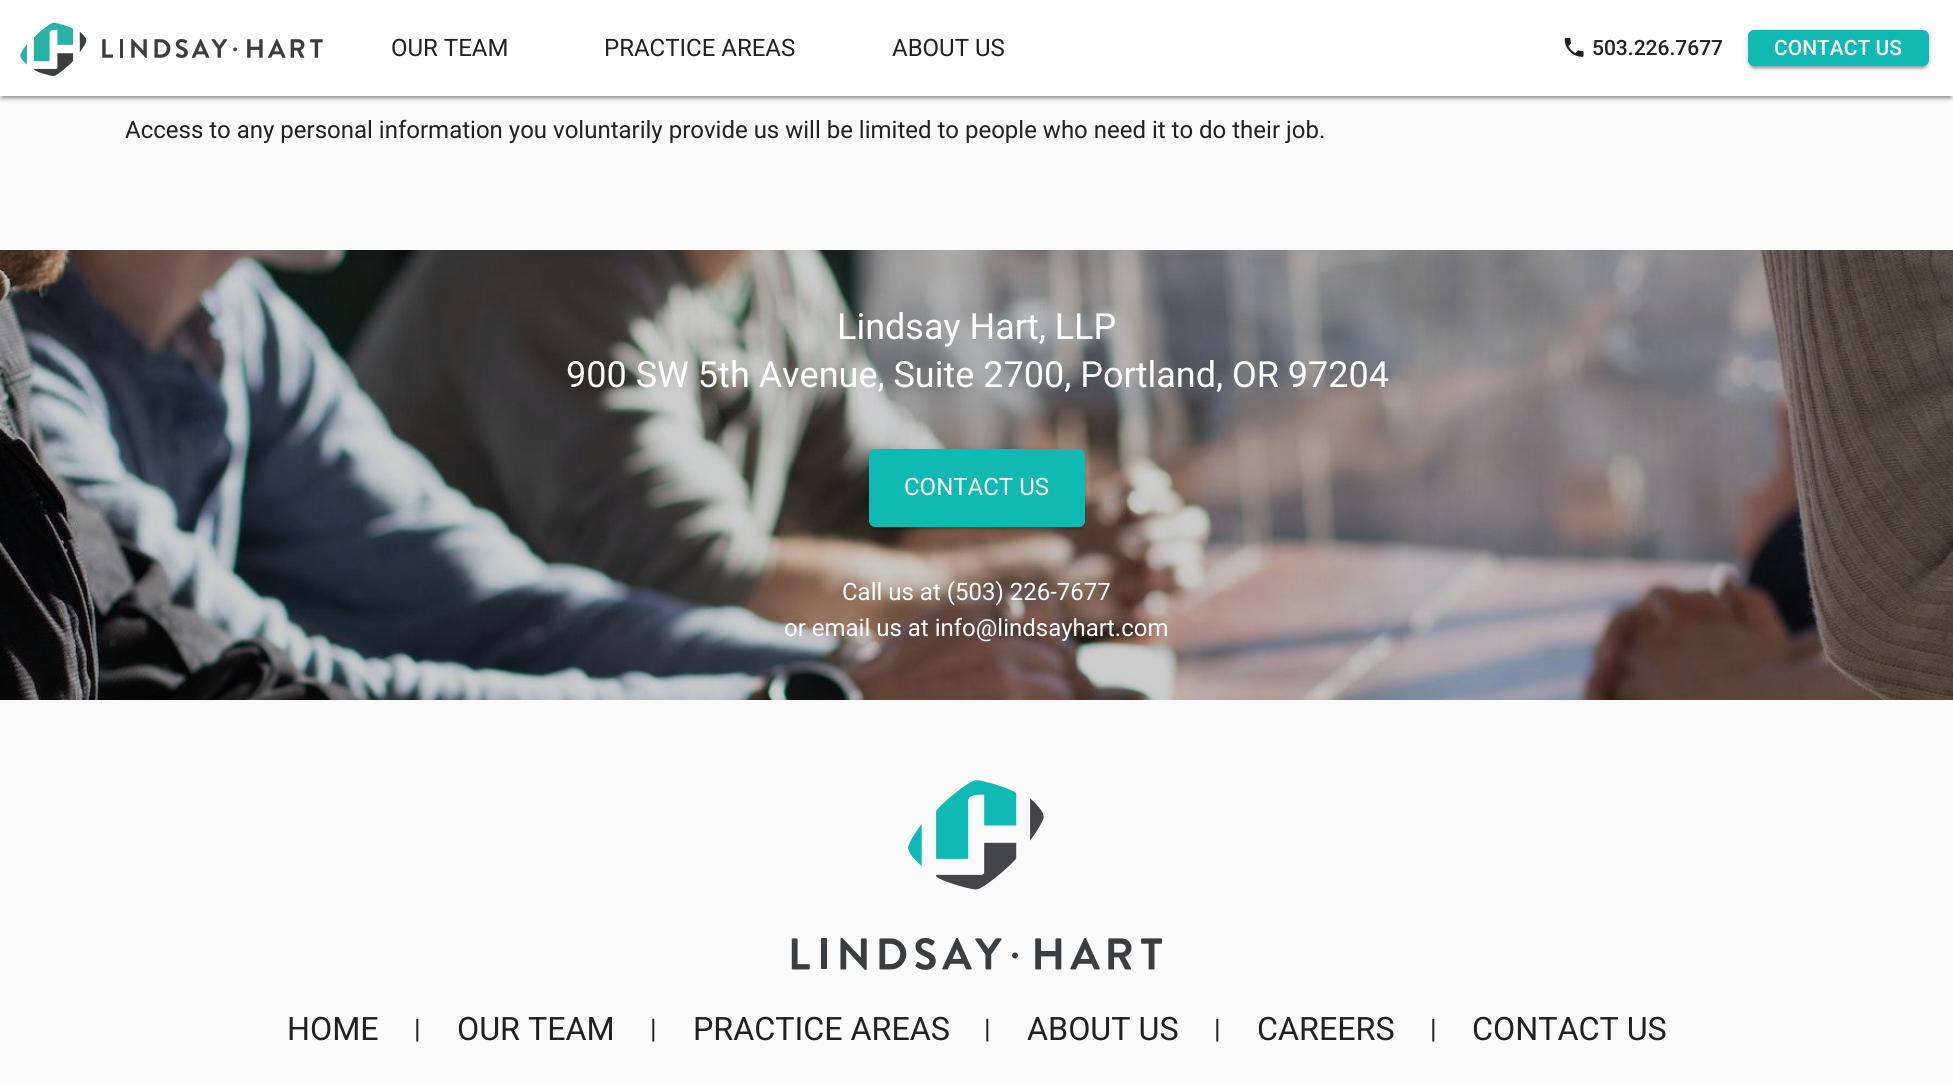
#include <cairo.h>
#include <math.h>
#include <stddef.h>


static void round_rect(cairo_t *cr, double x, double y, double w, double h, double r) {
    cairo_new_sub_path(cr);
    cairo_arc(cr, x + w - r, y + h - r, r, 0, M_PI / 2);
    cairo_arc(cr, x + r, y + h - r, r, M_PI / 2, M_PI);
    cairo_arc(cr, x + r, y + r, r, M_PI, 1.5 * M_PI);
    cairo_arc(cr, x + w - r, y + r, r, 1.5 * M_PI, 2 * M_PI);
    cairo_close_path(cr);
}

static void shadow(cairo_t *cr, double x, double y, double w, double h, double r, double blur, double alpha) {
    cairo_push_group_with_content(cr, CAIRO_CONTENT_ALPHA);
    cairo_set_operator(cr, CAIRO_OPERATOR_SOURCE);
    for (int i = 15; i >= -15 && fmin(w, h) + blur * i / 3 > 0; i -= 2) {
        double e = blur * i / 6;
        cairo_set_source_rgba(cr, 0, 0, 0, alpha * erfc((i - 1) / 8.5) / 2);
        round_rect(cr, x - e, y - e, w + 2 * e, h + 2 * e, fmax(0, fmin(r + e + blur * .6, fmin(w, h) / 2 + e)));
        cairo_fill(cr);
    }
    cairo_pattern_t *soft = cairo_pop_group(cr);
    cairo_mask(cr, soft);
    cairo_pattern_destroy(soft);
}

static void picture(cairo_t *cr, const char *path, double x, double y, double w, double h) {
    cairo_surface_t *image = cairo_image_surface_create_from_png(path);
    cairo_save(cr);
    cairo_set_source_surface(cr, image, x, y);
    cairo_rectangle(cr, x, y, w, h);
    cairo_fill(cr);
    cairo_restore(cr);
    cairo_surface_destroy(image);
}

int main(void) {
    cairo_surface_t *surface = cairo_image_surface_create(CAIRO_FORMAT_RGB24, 1953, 1083);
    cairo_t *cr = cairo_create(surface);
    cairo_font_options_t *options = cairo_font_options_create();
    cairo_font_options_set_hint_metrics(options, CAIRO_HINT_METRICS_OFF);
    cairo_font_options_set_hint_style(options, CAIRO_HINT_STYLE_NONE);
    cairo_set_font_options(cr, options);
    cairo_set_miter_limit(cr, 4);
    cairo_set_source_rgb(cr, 0.98, 0.98, 0.98);
    cairo_paint(cr);
    cairo_set_source_rgb(cr, 0, 0, 0);
    shadow(cr, 0, 2, 1953, 96, 0, 4, 0.12);
    shadow(cr, 0, 3, 1953, 96, 0, 1.5, 0.14);
    shadow(cr, 3, 8, 1947, 90, 0, 1, 0.2);
    cairo_set_source_rgb(cr, 1, 1, 1);
    cairo_rectangle(cr, 0, 0, 1953, 96);
    cairo_fill(cr);
    picture(cr, "img1.png", 20, 22, 303, 54);
    cairo_select_font_face(cr, "Roboto", CAIRO_FONT_SLANT_NORMAL, CAIRO_FONT_WEIGHT_NORMAL);
    cairo_set_font_size(cr, 24);
    cairo_set_source_rgb(cr, 0.129, 0.129, 0.129);
    cairo_move_to(cr, 391, 56);
    cairo_show_text(cr, "OUR TEAM");
    cairo_move_to(cr, 604, 56);
    cairo_show_text(cr, "PRACTICE AREAS");
    cairo_move_to(cr, 892, 56);
    cairo_show_text(cr, "ABOUT US");
    picture(cr, "img2.png", 1564, 37, 20, 20);
    cairo_select_font_face(cr, "Roboto Medium", CAIRO_FONT_SLANT_NORMAL, CAIRO_FONT_WEIGHT_NORMAL);
    cairo_set_font_size(cr, 21);
    cairo_move_to(cr, 1592, 55);
    cairo_show_text(cr, "503.226.7677");
    cairo_set_source_rgb(cr, 0, 0, 0);
    shadow(cr, 1748, 32, 181, 36, 6, 4, 0.12);
    shadow(cr, 1748, 33, 181, 36, 6, 1.5, 0.14);
    shadow(cr, 1751, 38, 175, 30, 3, 1, 0.2);
    cairo_set_source_rgb(cr, 0.063, 0.729, 0.702);
    round_rect(cr, 1748, 30, 181, 36, 6);
    cairo_fill(cr);
    cairo_set_source_rgb(cr, 1, 1, 1);
    cairo_move_to(cr, 1774, 55);
    cairo_show_text(cr, "CONTACT US");
    cairo_select_font_face(cr, "Roboto", CAIRO_FONT_SLANT_NORMAL, CAIRO_FONT_WEIGHT_NORMAL);
    cairo_set_font_size(cr, 24);
    cairo_set_source_rgb(cr, 0.129, 0.129, 0.129);
    cairo_move_to(cr, 125, 138);
    cairo_show_text(cr, "Access to any personal information you voluntarily provide us will be limited to people who need it to do their job.");
    picture(cr, "img3.png", 0, 250, 1953, 450);
    cairo_set_font_size(cr, 36);
    cairo_set_source_rgb(cr, 1, 1, 1);
    cairo_move_to(cr, 837, 339);
    cairo_show_text(cr, "Lindsay Hart, LLP");
    cairo_move_to(cr, 566, 387);
    cairo_show_text(cr, "900 SW 5th Avenue, Suite 2700, Portland, OR 97204");
    cairo_set_source_rgb(cr, 0, 0, 0);
    shadow(cr, 869, 450, 216, 78, 6, 4, 0.12);
    shadow(cr, 869, 452, 216, 78, 6, 1.5, 0.14);
    shadow(cr, 872, 456, 210, 72, 3, 1, 0.2);
    cairo_set_source_rgb(cr, 0.063, 0.729, 0.702);
    round_rect(cr, 869, 449, 216, 78, 6);
    cairo_fill(cr);
    cairo_set_font_size(cr, 24);
    cairo_set_source_rgb(cr, 1, 1, 1);
    cairo_move_to(cr, 904, 495);
    cairo_show_text(cr, "CONTACT US");
    cairo_move_to(cr, 842, 600);
    cairo_show_text(cr, "Call us at (503) 226-7677");
    cairo_move_to(cr, 784, 636);
    cairo_show_text(cr, "or email us at info@lindsayhart.com");
    picture(cr, "img4.png", 908, 780, 136, 110);
    picture(cr, "img5.png", 791, 938, 372, 32);
    cairo_set_font_size(cr, 32.25);
    cairo_set_source_rgb(cr, 0.129, 0.129, 0.129);
    cairo_move_to(cr, 287, 1040);
    cairo_show_text(cr, "HOME");
    cairo_set_font_size(cr, 27);
    cairo_move_to(cr, 414, 1038);
    cairo_show_text(cr, "|");
    cairo_set_font_size(cr, 32.25);
    cairo_move_to(cr, 457, 1040);
    cairo_show_text(cr, "OUR TEAM");
    cairo_set_font_size(cr, 27);
    cairo_move_to(cr, 650, 1038);
    cairo_show_text(cr, "|");
    cairo_set_font_size(cr, 32.25);
    cairo_move_to(cr, 693, 1040);
    cairo_show_text(cr, "PRACTICE AREAS");
    cairo_set_font_size(cr, 27);
    cairo_move_to(cr, 984, 1038);
    cairo_show_text(cr, "|");
    cairo_set_font_size(cr, 32.25);
    cairo_move_to(cr, 1027, 1040);
    cairo_show_text(cr, "ABOUT US");
    cairo_set_font_size(cr, 27);
    cairo_move_to(cr, 1214, 1038);
    cairo_show_text(cr, "|");
    cairo_set_font_size(cr, 32.25);
    cairo_move_to(cr, 1257, 1040);
    cairo_show_text(cr, "CAREERS");
    cairo_set_font_size(cr, 27);
    cairo_move_to(cr, 1430, 1038);
    cairo_show_text(cr, "|");
    cairo_set_font_size(cr, 32.25);
    cairo_move_to(cr, 1472, 1040);
    cairo_show_text(cr, "CONTACT US");
    cairo_surface_write_to_png(surface, "page.png");
    cairo_font_options_destroy(options);
    cairo_destroy(cr);
    cairo_surface_destroy(surface);
    return 0;
}
